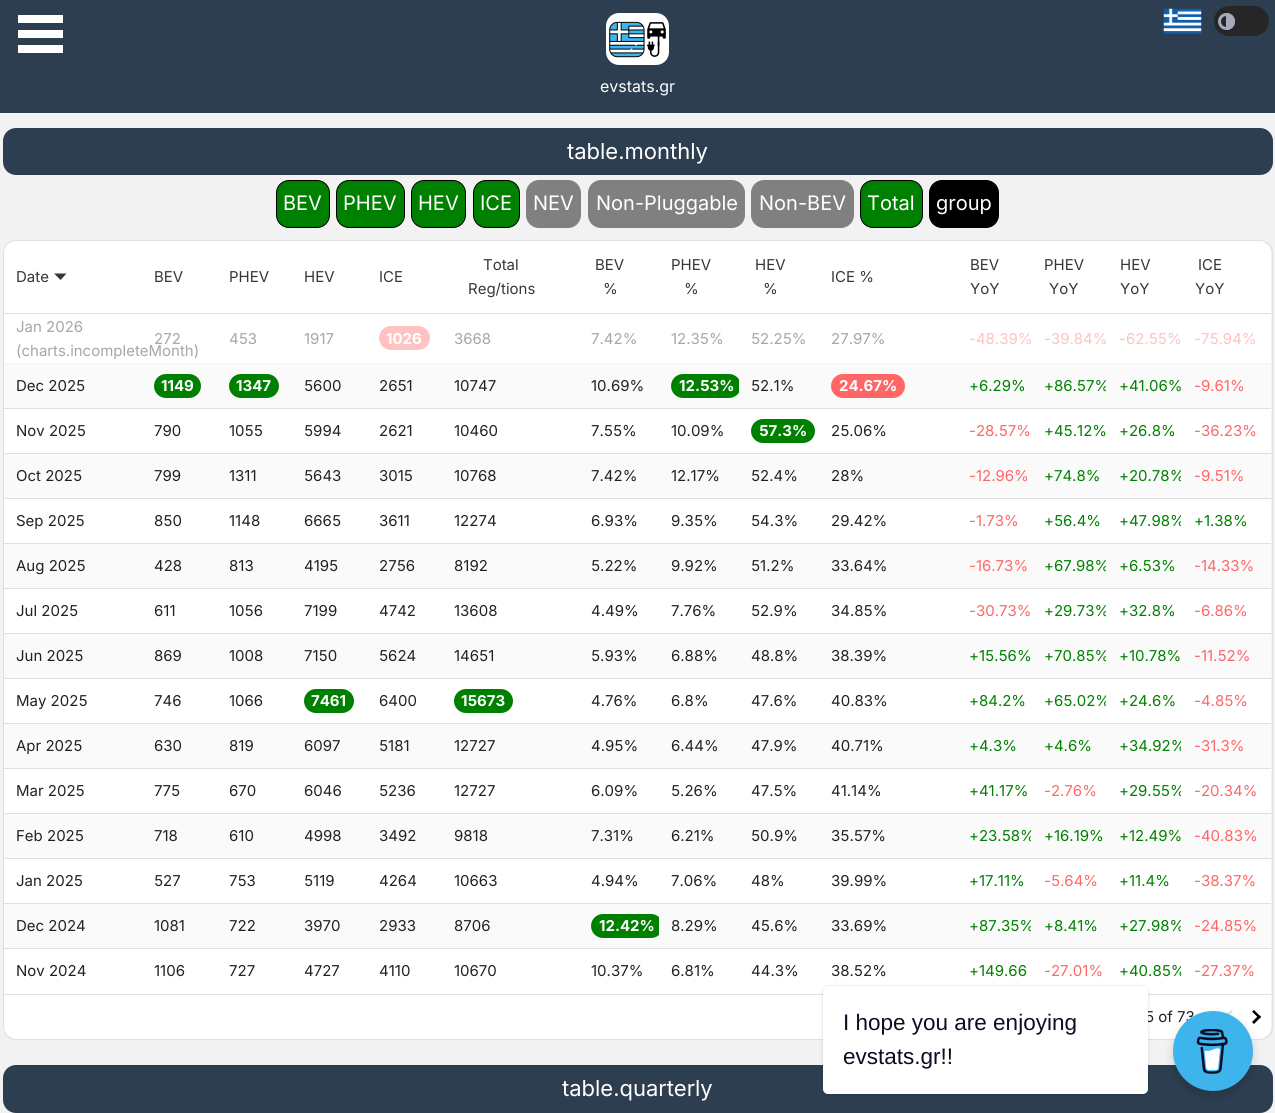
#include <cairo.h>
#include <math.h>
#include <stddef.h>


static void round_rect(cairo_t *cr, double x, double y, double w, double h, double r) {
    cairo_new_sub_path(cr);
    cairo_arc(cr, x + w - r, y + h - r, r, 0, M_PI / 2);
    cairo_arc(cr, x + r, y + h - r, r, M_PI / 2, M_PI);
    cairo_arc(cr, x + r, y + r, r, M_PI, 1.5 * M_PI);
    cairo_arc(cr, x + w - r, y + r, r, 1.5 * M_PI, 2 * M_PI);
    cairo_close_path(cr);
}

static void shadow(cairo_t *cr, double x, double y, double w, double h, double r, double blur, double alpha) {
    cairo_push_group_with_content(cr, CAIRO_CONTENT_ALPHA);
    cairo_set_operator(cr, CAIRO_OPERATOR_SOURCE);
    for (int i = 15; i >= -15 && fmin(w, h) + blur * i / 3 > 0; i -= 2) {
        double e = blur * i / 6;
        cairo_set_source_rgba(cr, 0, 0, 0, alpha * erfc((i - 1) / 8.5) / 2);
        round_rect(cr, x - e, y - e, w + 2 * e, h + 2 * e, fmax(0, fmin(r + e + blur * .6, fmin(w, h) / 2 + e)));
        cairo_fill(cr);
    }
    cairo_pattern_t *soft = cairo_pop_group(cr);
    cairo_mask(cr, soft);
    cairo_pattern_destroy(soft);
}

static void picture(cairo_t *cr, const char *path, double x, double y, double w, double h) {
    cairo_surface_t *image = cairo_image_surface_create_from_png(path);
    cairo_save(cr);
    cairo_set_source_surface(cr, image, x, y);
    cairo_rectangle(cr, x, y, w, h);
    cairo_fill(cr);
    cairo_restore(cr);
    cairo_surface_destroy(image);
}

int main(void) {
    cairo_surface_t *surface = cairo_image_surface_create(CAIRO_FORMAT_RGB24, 1275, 1113);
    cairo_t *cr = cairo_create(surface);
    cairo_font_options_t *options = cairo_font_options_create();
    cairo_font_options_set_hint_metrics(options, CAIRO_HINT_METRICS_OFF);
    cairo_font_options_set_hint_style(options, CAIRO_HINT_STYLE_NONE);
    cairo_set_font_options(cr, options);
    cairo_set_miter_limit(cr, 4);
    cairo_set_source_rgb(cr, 0.949, 0.949, 0.949);
    cairo_paint(cr);
    cairo_set_source_rgb(cr, 0.173, 0.243, 0.314);
    cairo_rectangle(cr, 0, 0, 1275, 113);
    cairo_fill(cr);
    cairo_set_source_rgb(cr, 1, 1, 1);
    cairo_rectangle(cr, 18, 15, 45, 8);
    cairo_fill(cr);
    cairo_rectangle(cr, 18, 30, 45, 8);
    cairo_fill(cr);
    cairo_rectangle(cr, 18, 45, 45, 8);
    cairo_fill(cr);
    picture(cr, "img1.png", 1163, 8, 39, 26);
    cairo_set_source_rgb(cr, 0.149, 0.149, 0.149);
    round_rect(cr, 1214, 6, 55, 30, 15);
    cairo_fill(cr);
    cairo_arc(cr, 1226.5, 21.5, 7, 0, 2 * M_PI);
    cairo_set_source_rgb(cr, 0.647, 0.671, 0.729);
    cairo_set_line_width(cr, 3);
    cairo_stroke(cr);
    cairo_save(cr);
    round_rect(cr, 1218, 13, 17, 17, 8.5);
    cairo_clip(cr);
    round_rect(cr, 1218, 13, 17, 17, 8.5);
    cairo_clip(cr);
    cairo_new_path(cr);
    cairo_move_to(cr, 1226, 13);
    cairo_line_to(cr, 1226.5, 13);
    cairo_curve_to(cr, 1231, 13, 1235, 17, 1235, 21.5);
    cairo_curve_to(cr, 1235, 26, 1231, 30, 1226.5, 30);
    cairo_line_to(cr, 1226, 30);
    cairo_close_path(cr);
    cairo_fill(cr);
    cairo_restore(cr);
    picture(cr, "img2.png", 606, 13, 63, 52);
    cairo_select_font_face(cr, "Inter", CAIRO_FONT_SLANT_NORMAL, CAIRO_FONT_WEIGHT_NORMAL);
    cairo_set_font_size(cr, 16);
    cairo_set_source_rgb(cr, 1, 1, 1);
    cairo_move_to(cr, 600, 92);
    cairo_show_text(cr, "evstats.gr");
    cairo_set_source_rgb(cr, 0.173, 0.243, 0.314);
    round_rect(cr, 3, 128, 1270, 47, 13);
    cairo_fill(cr);
    cairo_set_font_size(cr, 22);
    cairo_set_source_rgb(cr, 1, 1, 1);
    cairo_move_to(cr, 567, 159);
    cairo_show_text(cr, "table.monthly");
    cairo_set_source_rgb(cr, 0, 0.502, 0);
    round_rect(cr, 276.5, 180.5, 53, 47, 12.5);
    cairo_fill_preserve(cr);
    cairo_set_source_rgb(cr, 0, 0, 0);
    cairo_set_line_width(cr, 1);
    cairo_stroke(cr);
    cairo_set_font_size(cr, 20);
    cairo_set_source_rgb(cr, 1, 1, 1);
    cairo_move_to(cr, 283, 210);
    cairo_show_text(cr, "BEV");
    cairo_set_source_rgb(cr, 0, 0.502, 0);
    round_rect(cr, 336.5, 180.5, 68, 47, 12.5);
    cairo_fill_preserve(cr);
    cairo_set_source_rgb(cr, 0, 0, 0);
    cairo_stroke(cr);
    cairo_set_source_rgb(cr, 1, 1, 1);
    cairo_move_to(cr, 343, 210);
    cairo_show_text(cr, "PHEV");
    cairo_set_source_rgb(cr, 0, 0.502, 0);
    round_rect(cr, 411.5, 180.5, 54, 47, 12.5);
    cairo_fill_preserve(cr);
    cairo_set_source_rgb(cr, 0, 0, 0);
    cairo_stroke(cr);
    cairo_set_source_rgb(cr, 1, 1, 1);
    cairo_move_to(cr, 418, 210);
    cairo_show_text(cr, "HEV");
    cairo_set_source_rgb(cr, 0, 0.502, 0);
    round_rect(cr, 473.5, 180.5, 46, 47, 12.5);
    cairo_fill_preserve(cr);
    cairo_set_source_rgb(cr, 0, 0, 0);
    cairo_stroke(cr);
    cairo_set_source_rgb(cr, 1, 1, 1);
    cairo_move_to(cr, 480, 210);
    cairo_show_text(cr, "ICE");
    cairo_set_source_rgb(cr, 0.502, 0.502, 0.502);
    round_rect(cr, 526.5, 180.5, 54, 47, 12.5);
    cairo_fill_preserve(cr);
    cairo_stroke(cr);
    cairo_set_source_rgb(cr, 1, 1, 1);
    cairo_move_to(cr, 533, 210);
    cairo_show_text(cr, "NEV");
    cairo_set_source_rgb(cr, 0.502, 0.502, 0.502);
    round_rect(cr, 588.5, 180.5, 156, 47, 12.5);
    cairo_fill_preserve(cr);
    cairo_stroke(cr);
    cairo_set_source_rgb(cr, 1, 1, 1);
    cairo_move_to(cr, 596, 210);
    cairo_show_text(cr, "Non-Pluggable");
    cairo_set_source_rgb(cr, 0.502, 0.502, 0.502);
    round_rect(cr, 751.5, 180.5, 102, 47, 12.5);
    cairo_fill_preserve(cr);
    cairo_stroke(cr);
    cairo_set_source_rgb(cr, 1, 1, 1);
    cairo_move_to(cr, 759, 210);
    cairo_show_text(cr, "Non-BEV");
    cairo_set_source_rgb(cr, 0, 0.502, 0);
    round_rect(cr, 860.5, 180.5, 62, 47, 12.5);
    cairo_fill_preserve(cr);
    cairo_set_source_rgb(cr, 0, 0, 0);
    cairo_stroke(cr);
    cairo_set_source_rgb(cr, 1, 1, 1);
    cairo_move_to(cr, 867, 210);
    cairo_show_text(cr, "Total");
    cairo_set_source_rgb(cr, 0, 0, 0);
    round_rect(cr, 929.5, 180.5, 69, 47, 12.5);
    cairo_fill_preserve(cr);
    cairo_stroke(cr);
    cairo_set_source_rgb(cr, 1, 1, 1);
    cairo_move_to(cr, 936, 210);
    cairo_show_text(cr, "group");
    round_rect(cr, 3.5, 240.5, 1269, 799, 12.5);
    cairo_set_source_rgb(cr, 0.878, 0.878, 0.878);
    cairo_stroke(cr);
    cairo_set_source_rgb(cr, 1, 1, 1);
    cairo_new_path(cr);
    cairo_move_to(cr, 17, 241);
    cairo_line_to(cr, 1258, 241);
    cairo_curve_to(cr, 1265, 241, 1271, 247, 1271, 254);
    cairo_line_to(cr, 1271, 994);
    cairo_line_to(cr, 4, 994);
    cairo_line_to(cr, 4, 254);
    cairo_curve_to(cr, 4, 247, 10, 241, 17, 241);
    cairo_close_path(cr);
    cairo_fill(cr);
    cairo_new_path(cr);
    cairo_move_to(cr, 17, 241);
    cairo_line_to(cr, 141, 241);
    cairo_line_to(cr, 141, 314);
    cairo_line_to(cr, 4, 314);
    cairo_line_to(cr, 4, 254);
    cairo_curve_to(cr, 4, 247, 10, 241, 17, 241);
    cairo_close_path(cr);
    cairo_fill(cr);
    cairo_set_source_rgb(cr, 0.878, 0.878, 0.878);
    cairo_rectangle(cr, 4, 313, 137, 1);
    cairo_fill(cr);
    cairo_set_font_size(cr, 15);
    cairo_set_source_rgb(cr, 0.216, 0.216, 0.216);
    cairo_move_to(cr, 16, 282);
    cairo_show_text(cr, "Date");
    cairo_new_path(cr);
    cairo_move_to(cr, 54, 273.5);
    cairo_line_to(cr, 66.5, 273.5);
    cairo_line_to(cr, 60.5, 280);
    cairo_close_path(cr);
    cairo_fill(cr);
    cairo_set_source_rgb(cr, 0.878, 0.878, 0.878);
    cairo_rectangle(cr, 141, 313, 1115, 1);
    cairo_fill(cr);
    cairo_set_source_rgb(cr, 0.216, 0.216, 0.216);
    cairo_move_to(cr, 154, 282);
    cairo_show_text(cr, "BEV");
    cairo_move_to(cr, 229, 282);
    cairo_show_text(cr, "PHEV");
    cairo_move_to(cr, 304, 282);
    cairo_show_text(cr, "HEV");
    cairo_move_to(cr, 379, 282);
    cairo_show_text(cr, "ICE");
    cairo_move_to(cr, 483, 270);
    cairo_show_text(cr, "Total");
    cairo_move_to(cr, 468, 294);
    cairo_show_text(cr, "Reg/tions");
    cairo_move_to(cr, 595, 270);
    cairo_show_text(cr, "BEV");
    cairo_move_to(cr, 603, 294);
    cairo_show_text(cr, "%");
    cairo_move_to(cr, 671, 270);
    cairo_show_text(cr, "PHEV");
    cairo_move_to(cr, 684, 294);
    cairo_show_text(cr, "%");
    cairo_move_to(cr, 755, 270);
    cairo_show_text(cr, "HEV");
    cairo_move_to(cr, 763, 294);
    cairo_show_text(cr, "%");
    cairo_move_to(cr, 831, 282);
    cairo_show_text(cr, "ICE %");
    cairo_move_to(cr, 970, 270);
    cairo_show_text(cr, "BEV");
    cairo_move_to(cr, 970, 294);
    cairo_show_text(cr, "YoY");
    cairo_move_to(cr, 1044, 270);
    cairo_show_text(cr, "PHEV");
    cairo_move_to(cr, 1049, 294);
    cairo_show_text(cr, "YoY");
    cairo_move_to(cr, 1120, 270);
    cairo_show_text(cr, "HEV");
    cairo_move_to(cr, 1120, 294);
    cairo_show_text(cr, "YoY");
    cairo_move_to(cr, 1198, 270);
    cairo_show_text(cr, "ICE");
    cairo_move_to(cr, 1195, 294);
    cairo_show_text(cr, "YoY");
    cairo_set_source_rgb(cr, 1, 1, 1);
    cairo_new_path(cr);
    cairo_move_to(cr, 1256, 241);
    cairo_line_to(cr, 1258, 241);
    cairo_curve_to(cr, 1265, 241, 1271, 247, 1271, 254);
    cairo_line_to(cr, 1271, 314);
    cairo_line_to(cr, 1256, 314);
    cairo_close_path(cr);
    cairo_fill(cr);
    cairo_set_source_rgb(cr, 0.878, 0.878, 0.878);
    cairo_rectangle(cr, 1256, 313, 15, 1);
    cairo_fill(cr);
    cairo_set_source_rgb(cr, 0.651, 0.651, 0.651);
    cairo_move_to(cr, 16, 332);
    cairo_show_text(cr, "Jan 2026");
    cairo_move_to(cr, 16, 356);
    cairo_show_text(cr, "(charts.incompleteMonth)");
    cairo_set_source_rgb(cr, 0.953, 0.953, 0.953);
    cairo_rectangle(cr, 4, 363, 1267, 1);
    cairo_fill(cr);
    cairo_set_source_rgb(cr, 0.651, 0.651, 0.651);
    cairo_move_to(cr, 154, 344);
    cairo_show_text(cr, "272");
    cairo_move_to(cr, 229, 344);
    cairo_show_text(cr, "453");
    cairo_move_to(cr, 304, 344);
    cairo_show_text(cr, "1917");
    cairo_set_source_rgb(cr, 1, 0.761, 0.761);
    round_rect(cr, 380.5, 327.5, 48, 21, 10.5);
    cairo_fill_preserve(cr);
    cairo_set_line_width(cr, 3);
    cairo_stroke(cr);
    cairo_select_font_face(cr, "Inter", CAIRO_FONT_SLANT_NORMAL, CAIRO_FONT_WEIGHT_BOLD);
    cairo_set_source_rgb(cr, 1, 1, 1);
    cairo_move_to(cr, 386, 344);
    cairo_show_text(cr, "1026");
    cairo_select_font_face(cr, "Inter", CAIRO_FONT_SLANT_NORMAL, CAIRO_FONT_WEIGHT_NORMAL);
    cairo_set_source_rgb(cr, 0.651, 0.651, 0.651);
    cairo_move_to(cr, 454, 344);
    cairo_show_text(cr, "3668");
    cairo_move_to(cr, 591, 344);
    cairo_show_text(cr, "7.42%");
    cairo_move_to(cr, 671, 344);
    cairo_show_text(cr, "12.35%");
    cairo_move_to(cr, 751, 344);
    cairo_show_text(cr, "52.25%");
    cairo_move_to(cr, 831, 344);
    cairo_show_text(cr, "27.97%");
    cairo_set_source_rgb(cr, 1, 0.761, 0.761);
    cairo_move_to(cr, 969, 344);
    cairo_show_text(cr, "-48.39%");
    cairo_move_to(cr, 1044, 344);
    cairo_show_text(cr, "-39.84%");
    cairo_move_to(cr, 1119, 344);
    cairo_show_text(cr, "-62.55%");
    cairo_move_to(cr, 1194, 344);
    cairo_show_text(cr, "-75.94%");
    cairo_set_source_rgb(cr, 0.98, 0.98, 0.98);
    cairo_rectangle(cr, 4, 364, 137, 44);
    cairo_fill(cr);
    cairo_set_source_rgb(cr, 0.878, 0.878, 0.878);
    cairo_rectangle(cr, 4, 408, 137, 1);
    cairo_fill(cr);
    cairo_set_source_rgb(cr, 0.129, 0.129, 0.129);
    cairo_move_to(cr, 16, 391);
    cairo_show_text(cr, "Dec 2025");
    cairo_set_source_rgb(cr, 0.98, 0.98, 0.98);
    cairo_rectangle(cr, 141, 364, 598, 44);
    cairo_fill(cr);
    cairo_set_source_rgb(cr, 0.878, 0.878, 0.878);
    cairo_rectangle(cr, 141, 408, 1130, 1);
    cairo_fill(cr);
    cairo_set_source_rgb(cr, 0, 0.502, 0);
    round_rect(cr, 155.5, 375.5, 44, 21, 10.5);
    cairo_fill_preserve(cr);
    cairo_stroke(cr);
    cairo_select_font_face(cr, "Inter", CAIRO_FONT_SLANT_NORMAL, CAIRO_FONT_WEIGHT_BOLD);
    cairo_set_source_rgb(cr, 1, 1, 1);
    cairo_move_to(cr, 161, 391);
    cairo_show_text(cr, "1149");
    cairo_set_source_rgb(cr, 0, 0.502, 0);
    round_rect(cr, 230.5, 375.5, 47, 21, 10.5);
    cairo_fill_preserve(cr);
    cairo_stroke(cr);
    cairo_set_source_rgb(cr, 1, 1, 1);
    cairo_move_to(cr, 236, 391);
    cairo_show_text(cr, "1347");
    cairo_select_font_face(cr, "Inter", CAIRO_FONT_SLANT_NORMAL, CAIRO_FONT_WEIGHT_NORMAL);
    cairo_set_source_rgb(cr, 0.129, 0.129, 0.129);
    cairo_move_to(cr, 304, 391);
    cairo_show_text(cr, "5600");
    cairo_move_to(cr, 379, 391);
    cairo_show_text(cr, "2651");
    cairo_move_to(cr, 454, 391);
    cairo_show_text(cr, "10747");
    cairo_move_to(cr, 591, 391);
    cairo_show_text(cr, "10.69%");
    cairo_set_source_rgb(cr, 0, 0.502, 0);
    round_rect(cr, 672.5, 375.5, 67, 21, 10.5);
    cairo_fill_preserve(cr);
    cairo_stroke(cr);
    cairo_select_font_face(cr, "Inter", CAIRO_FONT_SLANT_NORMAL, CAIRO_FONT_WEIGHT_BOLD);
    cairo_set_source_rgb(cr, 1, 1, 1);
    cairo_move_to(cr, 679, 391);
    cairo_show_text(cr, "12.53%");
    cairo_set_source_rgb(cr, 0.98, 0.98, 0.98);
    cairo_rectangle(cr, 739, 364, 367, 44);
    cairo_fill(cr);
    cairo_select_font_face(cr, "Inter", CAIRO_FONT_SLANT_NORMAL, CAIRO_FONT_WEIGHT_NORMAL);
    cairo_set_source_rgb(cr, 0.129, 0.129, 0.129);
    cairo_move_to(cr, 751, 391);
    cairo_show_text(cr, "52.1%");
    cairo_set_source_rgb(cr, 1, 0.4, 0.4);
    round_rect(cr, 832.5, 375.5, 71, 21, 10.5);
    cairo_fill_preserve(cr);
    cairo_stroke(cr);
    cairo_select_font_face(cr, "Inter", CAIRO_FONT_SLANT_NORMAL, CAIRO_FONT_WEIGHT_BOLD);
    cairo_set_source_rgb(cr, 1, 1, 1);
    cairo_move_to(cr, 839, 391);
    cairo_show_text(cr, "24.67%");
    cairo_select_font_face(cr, "Inter", CAIRO_FONT_SLANT_NORMAL, CAIRO_FONT_WEIGHT_NORMAL);
    cairo_set_source_rgb(cr, 0, 0.502, 0);
    cairo_move_to(cr, 969, 391);
    cairo_show_text(cr, "+6.29%");
    cairo_move_to(cr, 1044, 391);
    cairo_show_text(cr, "+86.57%");
    cairo_set_source_rgb(cr, 0.98, 0.98, 0.98);
    cairo_rectangle(cr, 1106, 364, 165, 44);
    cairo_fill(cr);
    cairo_set_source_rgb(cr, 0, 0.502, 0);
    cairo_move_to(cr, 1119, 391);
    cairo_show_text(cr, "+41.06%");
    cairo_set_source_rgb(cr, 1, 0.4, 0.4);
    cairo_move_to(cr, 1194, 391);
    cairo_show_text(cr, "-9.61%");
    cairo_set_source_rgb(cr, 0.878, 0.878, 0.878);
    cairo_rectangle(cr, 4, 453, 137, 1);
    cairo_fill(cr);
    cairo_set_source_rgb(cr, 0.129, 0.129, 0.129);
    cairo_move_to(cr, 16, 436);
    cairo_show_text(cr, "Nov 2025");
    cairo_set_source_rgb(cr, 0.878, 0.878, 0.878);
    cairo_rectangle(cr, 141, 453, 1130, 1);
    cairo_fill(cr);
    cairo_set_source_rgb(cr, 0.129, 0.129, 0.129);
    cairo_move_to(cr, 154, 436);
    cairo_show_text(cr, "790");
    cairo_move_to(cr, 229, 436);
    cairo_show_text(cr, "1055");
    cairo_move_to(cr, 304, 436);
    cairo_show_text(cr, "5994");
    cairo_move_to(cr, 379, 436);
    cairo_show_text(cr, "2621");
    cairo_move_to(cr, 454, 436);
    cairo_show_text(cr, "10460");
    cairo_move_to(cr, 591, 436);
    cairo_show_text(cr, "7.55%");
    cairo_move_to(cr, 671, 436);
    cairo_show_text(cr, "10.09%");
    cairo_set_source_rgb(cr, 0, 0.502, 0);
    round_rect(cr, 752.5, 420.5, 61, 21, 10.5);
    cairo_fill_preserve(cr);
    cairo_stroke(cr);
    cairo_select_font_face(cr, "Inter", CAIRO_FONT_SLANT_NORMAL, CAIRO_FONT_WEIGHT_BOLD);
    cairo_set_source_rgb(cr, 1, 1, 1);
    cairo_move_to(cr, 759, 436);
    cairo_show_text(cr, "57.3%");
    cairo_select_font_face(cr, "Inter", CAIRO_FONT_SLANT_NORMAL, CAIRO_FONT_WEIGHT_NORMAL);
    cairo_set_source_rgb(cr, 0.129, 0.129, 0.129);
    cairo_move_to(cr, 831, 436);
    cairo_show_text(cr, "25.06%");
    cairo_set_source_rgb(cr, 1, 0.4, 0.4);
    cairo_move_to(cr, 969, 436);
    cairo_show_text(cr, "-28.57%");
    cairo_set_source_rgb(cr, 0, 0.502, 0);
    cairo_move_to(cr, 1044, 436);
    cairo_show_text(cr, "+45.12%");
    cairo_move_to(cr, 1119, 436);
    cairo_show_text(cr, "+26.8%");
    cairo_set_source_rgb(cr, 1, 0.4, 0.4);
    cairo_move_to(cr, 1194, 436);
    cairo_show_text(cr, "-36.23%");
    cairo_set_source_rgb(cr, 0.98, 0.98, 0.98);
    cairo_rectangle(cr, 4, 454, 137, 44);
    cairo_fill(cr);
    cairo_set_source_rgb(cr, 0.878, 0.878, 0.878);
    cairo_rectangle(cr, 4, 498, 137, 1);
    cairo_fill(cr);
    cairo_set_source_rgb(cr, 0.129, 0.129, 0.129);
    cairo_move_to(cr, 16, 481);
    cairo_show_text(cr, "Oct 2025");
    cairo_set_source_rgb(cr, 0.98, 0.98, 0.98);
    cairo_rectangle(cr, 141, 454, 1040, 44);
    cairo_fill(cr);
    cairo_set_source_rgb(cr, 0.878, 0.878, 0.878);
    cairo_rectangle(cr, 141, 498, 1130, 1);
    cairo_fill(cr);
    cairo_set_source_rgb(cr, 0.129, 0.129, 0.129);
    cairo_move_to(cr, 154, 481);
    cairo_show_text(cr, "799");
    cairo_move_to(cr, 229, 481);
    cairo_show_text(cr, "1311");
    cairo_move_to(cr, 304, 481);
    cairo_show_text(cr, "5643");
    cairo_move_to(cr, 379, 481);
    cairo_show_text(cr, "3015");
    cairo_move_to(cr, 454, 481);
    cairo_show_text(cr, "10768");
    cairo_move_to(cr, 591, 481);
    cairo_show_text(cr, "7.42%");
    cairo_move_to(cr, 671, 481);
    cairo_show_text(cr, "12.17%");
    cairo_move_to(cr, 751, 481);
    cairo_show_text(cr, "52.4%");
    cairo_move_to(cr, 831, 481);
    cairo_show_text(cr, "28%");
    cairo_set_source_rgb(cr, 1, 0.4, 0.4);
    cairo_move_to(cr, 969, 481);
    cairo_show_text(cr, "-12.96%");
    cairo_set_source_rgb(cr, 0, 0.502, 0);
    cairo_move_to(cr, 1044, 481);
    cairo_show_text(cr, "+74.8%");
    cairo_move_to(cr, 1119, 481);
    cairo_show_text(cr, "+20.78%");
    cairo_set_source_rgb(cr, 0.98, 0.98, 0.98);
    cairo_rectangle(cr, 1181, 454, 90, 44);
    cairo_fill(cr);
    cairo_set_source_rgb(cr, 1, 0.4, 0.4);
    cairo_move_to(cr, 1194, 481);
    cairo_show_text(cr, "-9.51%");
    cairo_set_source_rgb(cr, 0.129, 0.129, 0.129);
    cairo_move_to(cr, 16, 526);
    cairo_show_text(cr, "Sep 2025");
    cairo_set_source_rgb(cr, 0.878, 0.878, 0.878);
    cairo_rectangle(cr, 4, 543, 1267, 1);
    cairo_fill(cr);
    cairo_set_source_rgb(cr, 0.129, 0.129, 0.129);
    cairo_move_to(cr, 154, 526);
    cairo_show_text(cr, "850");
    cairo_move_to(cr, 229, 526);
    cairo_show_text(cr, "1148");
    cairo_move_to(cr, 304, 526);
    cairo_show_text(cr, "6665");
    cairo_move_to(cr, 379, 526);
    cairo_show_text(cr, "3611");
    cairo_move_to(cr, 454, 526);
    cairo_show_text(cr, "12274");
    cairo_move_to(cr, 591, 526);
    cairo_show_text(cr, "6.93%");
    cairo_move_to(cr, 671, 526);
    cairo_show_text(cr, "9.35%");
    cairo_move_to(cr, 751, 526);
    cairo_show_text(cr, "54.3%");
    cairo_move_to(cr, 831, 526);
    cairo_show_text(cr, "29.42%");
    cairo_set_source_rgb(cr, 1, 0.4, 0.4);
    cairo_move_to(cr, 969, 526);
    cairo_show_text(cr, "-1.73%");
    cairo_set_source_rgb(cr, 0, 0.502, 0);
    cairo_move_to(cr, 1044, 526);
    cairo_show_text(cr, "+56.4%");
    cairo_move_to(cr, 1119, 526);
    cairo_show_text(cr, "+47.98%");
    cairo_set_source_rgb(cr, 1, 1, 1);
    cairo_rectangle(cr, 1181, 515, 2, 12);
    cairo_fill(cr);
    cairo_set_source_rgb(cr, 0, 0.502, 0);
    cairo_move_to(cr, 1194, 526);
    cairo_show_text(cr, "+1.38%");
    cairo_set_source_rgb(cr, 0.98, 0.98, 0.98);
    cairo_rectangle(cr, 4, 544, 1102, 44);
    cairo_fill(cr);
    cairo_set_source_rgb(cr, 0.129, 0.129, 0.129);
    cairo_move_to(cr, 16, 571);
    cairo_show_text(cr, "Aug 2025");
    cairo_set_source_rgb(cr, 0.878, 0.878, 0.878);
    cairo_rectangle(cr, 4, 588, 1267, 1);
    cairo_fill(cr);
    cairo_set_source_rgb(cr, 0.129, 0.129, 0.129);
    cairo_move_to(cr, 154, 571);
    cairo_show_text(cr, "428");
    cairo_move_to(cr, 229, 571);
    cairo_show_text(cr, "813");
    cairo_move_to(cr, 304, 571);
    cairo_show_text(cr, "4195");
    cairo_move_to(cr, 379, 571);
    cairo_show_text(cr, "2756");
    cairo_move_to(cr, 454, 571);
    cairo_show_text(cr, "8192");
    cairo_move_to(cr, 591, 571);
    cairo_show_text(cr, "5.22%");
    cairo_move_to(cr, 671, 571);
    cairo_show_text(cr, "9.92%");
    cairo_move_to(cr, 751, 571);
    cairo_show_text(cr, "51.2%");
    cairo_move_to(cr, 831, 571);
    cairo_show_text(cr, "33.64%");
    cairo_set_source_rgb(cr, 1, 0.4, 0.4);
    cairo_move_to(cr, 969, 571);
    cairo_show_text(cr, "-16.73%");
    cairo_set_source_rgb(cr, 0, 0.502, 0);
    cairo_move_to(cr, 1044, 571);
    cairo_show_text(cr, "+67.98%");
    cairo_set_source_rgb(cr, 0.98, 0.98, 0.98);
    cairo_rectangle(cr, 1106, 544, 165, 44);
    cairo_fill(cr);
    cairo_set_source_rgb(cr, 0, 0.502, 0);
    cairo_move_to(cr, 1119, 571);
    cairo_show_text(cr, "+6.53%");
    cairo_set_source_rgb(cr, 1, 0.4, 0.4);
    cairo_move_to(cr, 1194, 571);
    cairo_show_text(cr, "-14.33%");
    cairo_set_source_rgb(cr, 0.129, 0.129, 0.129);
    cairo_move_to(cr, 16, 616);
    cairo_show_text(cr, "Jul 2025");
    cairo_set_source_rgb(cr, 0.878, 0.878, 0.878);
    cairo_rectangle(cr, 4, 633, 1267, 1);
    cairo_fill(cr);
    cairo_set_source_rgb(cr, 0.129, 0.129, 0.129);
    cairo_move_to(cr, 154, 616);
    cairo_show_text(cr, "611");
    cairo_move_to(cr, 229, 616);
    cairo_show_text(cr, "1056");
    cairo_move_to(cr, 304, 616);
    cairo_show_text(cr, "7199");
    cairo_move_to(cr, 379, 616);
    cairo_show_text(cr, "4742");
    cairo_move_to(cr, 454, 616);
    cairo_show_text(cr, "13608");
    cairo_move_to(cr, 591, 616);
    cairo_show_text(cr, "4.49%");
    cairo_move_to(cr, 671, 616);
    cairo_show_text(cr, "7.76%");
    cairo_move_to(cr, 751, 616);
    cairo_show_text(cr, "52.9%");
    cairo_move_to(cr, 831, 616);
    cairo_show_text(cr, "34.85%");
    cairo_set_source_rgb(cr, 1, 0.4, 0.4);
    cairo_move_to(cr, 969, 616);
    cairo_show_text(cr, "-30.73%");
    cairo_set_source_rgb(cr, 0, 0.502, 0);
    cairo_move_to(cr, 1044, 616);
    cairo_show_text(cr, "+29.73%");
    cairo_set_source_rgb(cr, 1, 1, 1);
    cairo_rectangle(cr, 1106, 611, 2, 5);
    cairo_fill(cr);
    cairo_set_source_rgb(cr, 0, 0.502, 0);
    cairo_move_to(cr, 1119, 616);
    cairo_show_text(cr, "+32.8%");
    cairo_set_source_rgb(cr, 1, 0.4, 0.4);
    cairo_move_to(cr, 1194, 616);
    cairo_show_text(cr, "-6.86%");
    cairo_set_source_rgb(cr, 0.98, 0.98, 0.98);
    cairo_rectangle(cr, 4, 634, 1102, 44);
    cairo_fill(cr);
    cairo_set_source_rgb(cr, 0.129, 0.129, 0.129);
    cairo_move_to(cr, 16, 661);
    cairo_show_text(cr, "Jun 2025");
    cairo_set_source_rgb(cr, 0.878, 0.878, 0.878);
    cairo_rectangle(cr, 4, 678, 1267, 1);
    cairo_fill(cr);
    cairo_set_source_rgb(cr, 0.129, 0.129, 0.129);
    cairo_move_to(cr, 154, 661);
    cairo_show_text(cr, "869");
    cairo_move_to(cr, 229, 661);
    cairo_show_text(cr, "1008");
    cairo_move_to(cr, 304, 661);
    cairo_show_text(cr, "7150");
    cairo_move_to(cr, 379, 661);
    cairo_show_text(cr, "5624");
    cairo_move_to(cr, 454, 661);
    cairo_show_text(cr, "14651");
    cairo_move_to(cr, 591, 661);
    cairo_show_text(cr, "5.93%");
    cairo_move_to(cr, 671, 661);
    cairo_show_text(cr, "6.88%");
    cairo_move_to(cr, 751, 661);
    cairo_show_text(cr, "48.8%");
    cairo_move_to(cr, 831, 661);
    cairo_show_text(cr, "38.39%");
    cairo_set_source_rgb(cr, 0, 0.502, 0);
    cairo_move_to(cr, 969, 661);
    cairo_show_text(cr, "+15.56%");
    cairo_move_to(cr, 1044, 661);
    cairo_show_text(cr, "+70.85%");
    cairo_set_source_rgb(cr, 0.98, 0.98, 0.98);
    cairo_rectangle(cr, 1106, 634, 165, 44);
    cairo_fill(cr);
    cairo_set_source_rgb(cr, 0, 0.502, 0);
    cairo_move_to(cr, 1119, 661);
    cairo_show_text(cr, "+10.78%");
    cairo_set_source_rgb(cr, 1, 0.4, 0.4);
    cairo_move_to(cr, 1194, 661);
    cairo_show_text(cr, "-11.52%");
    cairo_set_source_rgb(cr, 0.129, 0.129, 0.129);
    cairo_move_to(cr, 16, 706);
    cairo_show_text(cr, "May 2025");
    cairo_set_source_rgb(cr, 0.878, 0.878, 0.878);
    cairo_rectangle(cr, 4, 723, 1267, 1);
    cairo_fill(cr);
    cairo_set_source_rgb(cr, 0.129, 0.129, 0.129);
    cairo_move_to(cr, 154, 706);
    cairo_show_text(cr, "746");
    cairo_move_to(cr, 229, 706);
    cairo_show_text(cr, "1066");
    cairo_set_source_rgb(cr, 0, 0.502, 0);
    round_rect(cr, 305.5, 690.5, 47, 21, 10.5);
    cairo_fill_preserve(cr);
    cairo_stroke(cr);
    cairo_select_font_face(cr, "Inter", CAIRO_FONT_SLANT_NORMAL, CAIRO_FONT_WEIGHT_BOLD);
    cairo_set_source_rgb(cr, 1, 1, 1);
    cairo_move_to(cr, 311, 706);
    cairo_show_text(cr, "7461");
    cairo_select_font_face(cr, "Inter", CAIRO_FONT_SLANT_NORMAL, CAIRO_FONT_WEIGHT_NORMAL);
    cairo_set_source_rgb(cr, 0.129, 0.129, 0.129);
    cairo_move_to(cr, 379, 706);
    cairo_show_text(cr, "6400");
    cairo_set_source_rgb(cr, 0, 0.502, 0);
    round_rect(cr, 455.5, 690.5, 56, 21, 10.5);
    cairo_fill_preserve(cr);
    cairo_stroke(cr);
    cairo_select_font_face(cr, "Inter", CAIRO_FONT_SLANT_NORMAL, CAIRO_FONT_WEIGHT_BOLD);
    cairo_set_source_rgb(cr, 1, 1, 1);
    cairo_move_to(cr, 461, 706);
    cairo_show_text(cr, "15673");
    cairo_select_font_face(cr, "Inter", CAIRO_FONT_SLANT_NORMAL, CAIRO_FONT_WEIGHT_NORMAL);
    cairo_set_source_rgb(cr, 0.129, 0.129, 0.129);
    cairo_move_to(cr, 591, 706);
    cairo_show_text(cr, "4.76%");
    cairo_move_to(cr, 671, 706);
    cairo_show_text(cr, "6.8%");
    cairo_move_to(cr, 751, 706);
    cairo_show_text(cr, "47.6%");
    cairo_move_to(cr, 831, 706);
    cairo_show_text(cr, "40.83%");
    cairo_set_source_rgb(cr, 0, 0.502, 0);
    cairo_move_to(cr, 969, 706);
    cairo_show_text(cr, "+84.2%");
    cairo_move_to(cr, 1044, 706);
    cairo_show_text(cr, "+65.02%");
    cairo_set_source_rgb(cr, 1, 1, 1);
    cairo_rectangle(cr, 1106, 695, 3, 12);
    cairo_fill(cr);
    cairo_set_source_rgb(cr, 0, 0.502, 0);
    cairo_move_to(cr, 1119, 706);
    cairo_show_text(cr, "+24.6%");
    cairo_set_source_rgb(cr, 1, 0.4, 0.4);
    cairo_move_to(cr, 1194, 706);
    cairo_show_text(cr, "-4.85%");
    cairo_set_source_rgb(cr, 0.98, 0.98, 0.98);
    cairo_rectangle(cr, 4, 724, 1177, 44);
    cairo_fill(cr);
    cairo_set_source_rgb(cr, 0.129, 0.129, 0.129);
    cairo_move_to(cr, 16, 751);
    cairo_show_text(cr, "Apr 2025");
    cairo_set_source_rgb(cr, 0.878, 0.878, 0.878);
    cairo_rectangle(cr, 4, 768, 1267, 1);
    cairo_fill(cr);
    cairo_set_source_rgb(cr, 0.129, 0.129, 0.129);
    cairo_move_to(cr, 154, 751);
    cairo_show_text(cr, "630");
    cairo_move_to(cr, 229, 751);
    cairo_show_text(cr, "819");
    cairo_move_to(cr, 304, 751);
    cairo_show_text(cr, "6097");
    cairo_move_to(cr, 379, 751);
    cairo_show_text(cr, "5181");
    cairo_move_to(cr, 454, 751);
    cairo_show_text(cr, "12727");
    cairo_move_to(cr, 591, 751);
    cairo_show_text(cr, "4.95%");
    cairo_move_to(cr, 671, 751);
    cairo_show_text(cr, "6.44%");
    cairo_move_to(cr, 751, 751);
    cairo_show_text(cr, "47.9%");
    cairo_move_to(cr, 831, 751);
    cairo_show_text(cr, "40.71%");
    cairo_set_source_rgb(cr, 0, 0.502, 0);
    cairo_move_to(cr, 969, 751);
    cairo_show_text(cr, "+4.3%");
    cairo_move_to(cr, 1044, 751);
    cairo_show_text(cr, "+4.6%");
    cairo_move_to(cr, 1119, 751);
    cairo_show_text(cr, "+34.92%");
    cairo_set_source_rgb(cr, 0.98, 0.98, 0.98);
    cairo_rectangle(cr, 1181, 724, 90, 44);
    cairo_fill(cr);
    cairo_set_source_rgb(cr, 1, 0.4, 0.4);
    cairo_move_to(cr, 1194, 751);
    cairo_show_text(cr, "-31.3%");
    cairo_set_source_rgb(cr, 0.129, 0.129, 0.129);
    cairo_move_to(cr, 16, 796);
    cairo_show_text(cr, "Mar 2025");
    cairo_set_source_rgb(cr, 0.878, 0.878, 0.878);
    cairo_rectangle(cr, 4, 813, 1267, 1);
    cairo_fill(cr);
    cairo_set_source_rgb(cr, 0.129, 0.129, 0.129);
    cairo_move_to(cr, 154, 796);
    cairo_show_text(cr, "775");
    cairo_move_to(cr, 229, 796);
    cairo_show_text(cr, "670");
    cairo_move_to(cr, 304, 796);
    cairo_show_text(cr, "6046");
    cairo_move_to(cr, 379, 796);
    cairo_show_text(cr, "5236");
    cairo_move_to(cr, 454, 796);
    cairo_show_text(cr, "12727");
    cairo_move_to(cr, 591, 796);
    cairo_show_text(cr, "6.09%");
    cairo_move_to(cr, 671, 796);
    cairo_show_text(cr, "5.26%");
    cairo_move_to(cr, 751, 796);
    cairo_show_text(cr, "47.5%");
    cairo_move_to(cr, 831, 796);
    cairo_show_text(cr, "41.14%");
    cairo_set_source_rgb(cr, 0, 0.502, 0);
    cairo_move_to(cr, 969, 796);
    cairo_show_text(cr, "+41.17%");
    cairo_set_source_rgb(cr, 1, 0.4, 0.4);
    cairo_move_to(cr, 1044, 796);
    cairo_show_text(cr, "-2.76%");
    cairo_set_source_rgb(cr, 0, 0.502, 0);
    cairo_move_to(cr, 1119, 796);
    cairo_show_text(cr, "+29.55%");
    cairo_set_source_rgb(cr, 1, 1, 1);
    cairo_rectangle(cr, 1181, 785, 2, 12);
    cairo_fill(cr);
    cairo_set_source_rgb(cr, 1, 0.4, 0.4);
    cairo_move_to(cr, 1194, 796);
    cairo_show_text(cr, "-20.34%");
    cairo_set_source_rgb(cr, 0.98, 0.98, 0.98);
    cairo_rectangle(cr, 4, 814, 1027, 44);
    cairo_fill(cr);
    cairo_set_source_rgb(cr, 0.129, 0.129, 0.129);
    cairo_move_to(cr, 16, 841);
    cairo_show_text(cr, "Feb 2025");
    cairo_set_source_rgb(cr, 0.878, 0.878, 0.878);
    cairo_rectangle(cr, 4, 858, 1267, 1);
    cairo_fill(cr);
    cairo_set_source_rgb(cr, 0.129, 0.129, 0.129);
    cairo_move_to(cr, 154, 841);
    cairo_show_text(cr, "718");
    cairo_move_to(cr, 229, 841);
    cairo_show_text(cr, "610");
    cairo_move_to(cr, 304, 841);
    cairo_show_text(cr, "4998");
    cairo_move_to(cr, 379, 841);
    cairo_show_text(cr, "3492");
    cairo_move_to(cr, 454, 841);
    cairo_show_text(cr, "9818");
    cairo_move_to(cr, 591, 841);
    cairo_show_text(cr, "7.31%");
    cairo_move_to(cr, 671, 841);
    cairo_show_text(cr, "6.21%");
    cairo_move_to(cr, 751, 841);
    cairo_show_text(cr, "50.9%");
    cairo_move_to(cr, 831, 841);
    cairo_show_text(cr, "35.57%");
    cairo_set_source_rgb(cr, 0, 0.502, 0);
    cairo_move_to(cr, 969, 841);
    cairo_show_text(cr, "+23.58%");
    cairo_set_source_rgb(cr, 0.98, 0.98, 0.98);
    cairo_rectangle(cr, 1031, 814, 240, 44);
    cairo_fill(cr);
    cairo_set_source_rgb(cr, 0, 0.502, 0);
    cairo_move_to(cr, 1044, 841);
    cairo_show_text(cr, "+16.19%");
    cairo_move_to(cr, 1119, 841);
    cairo_show_text(cr, "+12.49%");
    cairo_set_source_rgb(cr, 1, 0.4, 0.4);
    cairo_move_to(cr, 1194, 841);
    cairo_show_text(cr, "-40.83%");
    cairo_set_source_rgb(cr, 0.129, 0.129, 0.129);
    cairo_move_to(cr, 16, 886);
    cairo_show_text(cr, "Jan 2025");
    cairo_set_source_rgb(cr, 0.878, 0.878, 0.878);
    cairo_rectangle(cr, 4, 903, 1267, 1);
    cairo_fill(cr);
    cairo_set_source_rgb(cr, 0.129, 0.129, 0.129);
    cairo_move_to(cr, 154, 886);
    cairo_show_text(cr, "527");
    cairo_move_to(cr, 229, 886);
    cairo_show_text(cr, "753");
    cairo_move_to(cr, 304, 886);
    cairo_show_text(cr, "5119");
    cairo_move_to(cr, 379, 886);
    cairo_show_text(cr, "4264");
    cairo_move_to(cr, 454, 886);
    cairo_show_text(cr, "10663");
    cairo_move_to(cr, 591, 886);
    cairo_show_text(cr, "4.94%");
    cairo_move_to(cr, 671, 886);
    cairo_show_text(cr, "7.06%");
    cairo_move_to(cr, 751, 886);
    cairo_show_text(cr, "48%");
    cairo_move_to(cr, 831, 886);
    cairo_show_text(cr, "39.99%");
    cairo_set_source_rgb(cr, 0, 0.502, 0);
    cairo_move_to(cr, 969, 886);
    cairo_show_text(cr, "+17.11%");
    cairo_set_source_rgb(cr, 1, 0.4, 0.4);
    cairo_move_to(cr, 1044, 886);
    cairo_show_text(cr, "-5.64%");
    cairo_set_source_rgb(cr, 0, 0.502, 0);
    cairo_move_to(cr, 1119, 886);
    cairo_show_text(cr, "+11.4%");
    cairo_set_source_rgb(cr, 1, 0.4, 0.4);
    cairo_move_to(cr, 1194, 886);
    cairo_show_text(cr, "-38.37%");
    cairo_set_source_rgb(cr, 0.98, 0.98, 0.98);
    cairo_rectangle(cr, 4, 904, 655, 44);
    cairo_fill(cr);
    cairo_set_source_rgb(cr, 0.129, 0.129, 0.129);
    cairo_move_to(cr, 16, 931);
    cairo_show_text(cr, "Dec 2024");
    cairo_set_source_rgb(cr, 0.878, 0.878, 0.878);
    cairo_rectangle(cr, 4, 948, 1267, 1);
    cairo_fill(cr);
    cairo_set_source_rgb(cr, 0.129, 0.129, 0.129);
    cairo_move_to(cr, 154, 931);
    cairo_show_text(cr, "1081");
    cairo_move_to(cr, 229, 931);
    cairo_show_text(cr, "722");
    cairo_move_to(cr, 304, 931);
    cairo_show_text(cr, "3970");
    cairo_move_to(cr, 379, 931);
    cairo_show_text(cr, "2933");
    cairo_move_to(cr, 454, 931);
    cairo_show_text(cr, "8706");
    cairo_set_source_rgb(cr, 0, 0.502, 0);
    round_rect(cr, 592.5, 915.5, 69, 21, 10.5);
    cairo_fill_preserve(cr);
    cairo_stroke(cr);
    cairo_select_font_face(cr, "Inter", CAIRO_FONT_SLANT_NORMAL, CAIRO_FONT_WEIGHT_BOLD);
    cairo_set_source_rgb(cr, 1, 1, 1);
    cairo_move_to(cr, 599, 931);
    cairo_show_text(cr, "12.42%");
    cairo_set_source_rgb(cr, 0.98, 0.98, 0.98);
    cairo_rectangle(cr, 659, 904, 372, 44);
    cairo_fill(cr);
    cairo_select_font_face(cr, "Inter", CAIRO_FONT_SLANT_NORMAL, CAIRO_FONT_WEIGHT_NORMAL);
    cairo_set_source_rgb(cr, 0.129, 0.129, 0.129);
    cairo_move_to(cr, 671, 931);
    cairo_show_text(cr, "8.29%");
    cairo_move_to(cr, 751, 931);
    cairo_show_text(cr, "45.6%");
    cairo_move_to(cr, 831, 931);
    cairo_show_text(cr, "33.69%");
    cairo_set_source_rgb(cr, 0, 0.502, 0);
    cairo_move_to(cr, 969, 931);
    cairo_show_text(cr, "+87.35%");
    cairo_set_source_rgb(cr, 0.98, 0.98, 0.98);
    cairo_rectangle(cr, 1031, 904, 150, 44);
    cairo_fill(cr);
    cairo_set_source_rgb(cr, 0, 0.502, 0);
    cairo_move_to(cr, 1044, 931);
    cairo_show_text(cr, "+8.41%");
    cairo_move_to(cr, 1119, 931);
    cairo_show_text(cr, "+27.98%");
    cairo_set_source_rgb(cr, 0.98, 0.98, 0.98);
    cairo_rectangle(cr, 1181, 904, 90, 44);
    cairo_fill(cr);
    cairo_set_source_rgb(cr, 1, 0.4, 0.4);
    cairo_move_to(cr, 1194, 931);
    cairo_show_text(cr, "-24.85%");
    cairo_set_source_rgb(cr, 0.129, 0.129, 0.129);
    cairo_move_to(cr, 16, 976);
    cairo_show_text(cr, "Nov 2024");
    cairo_move_to(cr, 154, 976);
    cairo_show_text(cr, "1106");
    cairo_move_to(cr, 229, 976);
    cairo_show_text(cr, "727");
    cairo_move_to(cr, 304, 976);
    cairo_show_text(cr, "4727");
    cairo_move_to(cr, 379, 976);
    cairo_show_text(cr, "4110");
    cairo_move_to(cr, 454, 976);
    cairo_show_text(cr, "10670");
    cairo_move_to(cr, 591, 976);
    cairo_show_text(cr, "10.37%");
    cairo_move_to(cr, 671, 976);
    cairo_show_text(cr, "6.81%");
    cairo_move_to(cr, 751, 976);
    cairo_show_text(cr, "44.3%");
    cairo_move_to(cr, 831, 976);
    cairo_show_text(cr, "38.52%");
    cairo_set_source_rgb(cr, 0, 0.502, 0);
    cairo_move_to(cr, 969, 976);
    cairo_show_text(cr, "+149.66");
    cairo_set_source_rgb(cr, 1, 0.4, 0.4);
    cairo_move_to(cr, 1044, 976);
    cairo_show_text(cr, "-27.01%");
    cairo_set_source_rgb(cr, 0, 0.502, 0);
    cairo_move_to(cr, 1119, 976);
    cairo_show_text(cr, "+40.85%");
    cairo_set_source_rgb(cr, 1, 1, 1);
    cairo_rectangle(cr, 1181, 965, 3, 12);
    cairo_fill(cr);
    cairo_set_source_rgb(cr, 1, 0.4, 0.4);
    cairo_move_to(cr, 1194, 976);
    cairo_show_text(cr, "-27.37%");
    cairo_set_source_rgb(cr, 1, 1, 1);
    cairo_new_path(cr);
    cairo_move_to(cr, 4, 994);
    cairo_line_to(cr, 1271, 994);
    cairo_line_to(cr, 1271, 1026);
    cairo_curve_to(cr, 1271, 1033, 1265, 1039, 1258, 1039);
    cairo_line_to(cr, 17, 1039);
    cairo_curve_to(cr, 10, 1039, 4, 1033, 4, 1026);
    cairo_close_path(cr);
    cairo_fill(cr);
    cairo_set_source_rgb(cr, 0.878, 0.878, 0.878);
    cairo_rectangle(cr, 4, 994, 1267, 1);
    cairo_fill(cr);
    cairo_set_source_rgb(cr, 0.129, 0.129, 0.129);
    cairo_move_to(cr, 1145, 1022);
    cairo_show_text(cr, "5 of 73");
    cairo_set_source_rgb(cr, 0.878, 0.878, 0.878);
    cairo_new_path(cr);
    cairo_move_to(cr, 1224, 1017);
    cairo_line_to(cr, 1231, 1010);
    cairo_line_to(cr, 1233, 1011.5);
    cairo_line_to(cr, 1226, 1018.5);
    cairo_close_path(cr);
    cairo_fill(cr);
    cairo_set_source_rgb(cr, 0, 0, 0);
    cairo_new_path(cr);
    cairo_move_to(cr, 1261, 1017);
    cairo_line_to(cr, 1254, 1024);
    cairo_line_to(cr, 1252, 1022);
    cairo_line_to(cr, 1259, 1015);
    cairo_close_path(cr);
    cairo_fill(cr);
    cairo_new_path(cr);
    cairo_move_to(cr, 1261, 1017);
    cairo_line_to(cr, 1259, 1018.5);
    cairo_line_to(cr, 1252, 1011.5);
    cairo_line_to(cr, 1254, 1010);
    cairo_close_path(cr);
    cairo_fill(cr);
    cairo_set_source_rgb(cr, 0.173, 0.243, 0.314);
    round_rect(cr, 3, 1065, 1270, 48, 13);
    cairo_fill(cr);
    cairo_set_font_size(cr, 22);
    cairo_set_source_rgb(cr, 1, 1, 1);
    cairo_move_to(cr, 562, 1096);
    cairo_show_text(cr, "table.quarterly");
    cairo_set_source_rgb(cr, 0, 0, 0);
    shadow(cr, 823, 986, 325, 108, 5, 1, 0.15);
    shadow(cr, 823, 989, 325, 107, 5, 3, 0.05);
    cairo_set_source_rgb(cr, 1, 1, 1);
    round_rect(cr, 823, 986, 325, 108, 5);
    cairo_fill(cr);
    cairo_select_font_face(cr, "Liberation Sans", CAIRO_FONT_SLANT_NORMAL, CAIRO_FONT_WEIGHT_NORMAL);
    cairo_set_font_size(cr, 22.5);
    cairo_set_source_rgb(cr, 0.051, 0.047, 0.133);
    cairo_move_to(cr, 843, 1030);
    cairo_show_text(cr, "I hope you are enjoying");
    cairo_move_to(cr, 843, 1064);
    cairo_show_text(cr, "evstats.gr!!");
    cairo_set_source_rgb(cr, 0, 0, 0);
    shadow(cr, 1173, 1016, 80, 80, 40, 5, 0.15);
    cairo_set_source_rgb(cr, 0.239, 0.706, 0.918);
    cairo_arc(cr, 1213, 1051, 40, 0, 2 * M_PI);
    cairo_fill(cr);
    picture(cr, "img3.png", 1196, 1029, 32, 45);
    cairo_surface_write_to_png(surface, "page.png");
    cairo_font_options_destroy(options);
    cairo_destroy(cr);
    cairo_surface_destroy(surface);
    return 0;
}
